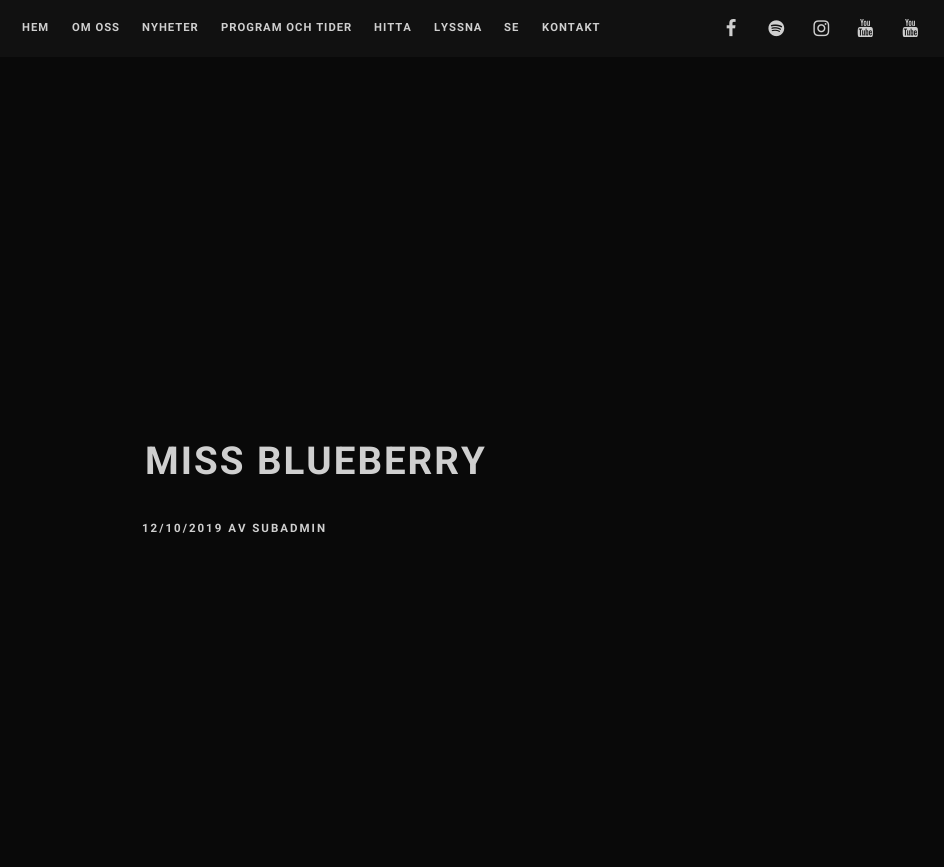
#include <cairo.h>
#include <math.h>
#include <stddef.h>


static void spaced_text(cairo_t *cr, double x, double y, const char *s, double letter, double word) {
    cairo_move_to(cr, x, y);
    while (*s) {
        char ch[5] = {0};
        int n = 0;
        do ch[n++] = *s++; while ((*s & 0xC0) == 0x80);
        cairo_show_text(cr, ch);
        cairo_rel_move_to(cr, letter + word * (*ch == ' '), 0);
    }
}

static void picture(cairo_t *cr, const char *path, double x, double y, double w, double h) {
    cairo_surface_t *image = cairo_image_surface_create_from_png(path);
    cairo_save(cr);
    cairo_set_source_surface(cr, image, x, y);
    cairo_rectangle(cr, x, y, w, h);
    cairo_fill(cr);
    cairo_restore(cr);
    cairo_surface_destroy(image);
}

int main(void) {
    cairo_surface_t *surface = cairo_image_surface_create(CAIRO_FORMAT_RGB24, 944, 867);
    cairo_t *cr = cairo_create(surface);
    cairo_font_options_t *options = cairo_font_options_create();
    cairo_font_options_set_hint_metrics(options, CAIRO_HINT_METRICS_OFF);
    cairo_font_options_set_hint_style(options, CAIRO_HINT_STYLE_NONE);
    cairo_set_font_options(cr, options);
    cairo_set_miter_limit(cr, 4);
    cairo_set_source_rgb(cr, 0.039, 0.039, 0.039);
    cairo_paint(cr);
    cairo_set_source_rgb(cr, 0.067, 0.067, 0.067);
    cairo_rectangle(cr, 0, 0, 944, 57);
    cairo_fill(cr);
    cairo_select_font_face(cr, "Roboto", CAIRO_FONT_SLANT_NORMAL, CAIRO_FONT_WEIGHT_BOLD);
    cairo_set_font_size(cr, 11.25);
    cairo_set_source_rgb(cr, 0.812, 0.812, 0.812);
    spaced_text(cr, 22, 31, "HEM", 1, 0);
    spaced_text(cr, 72, 31, "OM OSS", 1, 0);
    spaced_text(cr, 142, 31, "NYHETER", 1, 0);
    spaced_text(cr, 221, 31, "PROGRAM OCH TIDER", 1, 0);
    spaced_text(cr, 374, 31, "HITTA", 1, 0);
    spaced_text(cr, 434, 31, "LYSSNA", 1, 0);
    spaced_text(cr, 504, 31, "SE", 1, 0);
    spaced_text(cr, 542, 31, "KONTAKT", 1, 0);
    picture(cr, "img1.png", 726, 19, 10, 18);
    picture(cr, "img2.png", 768, 20, 17, 17);
    picture(cr, "img3.png", 813, 20, 17, 17);
    picture(cr, "img4.png", 857, 19, 16, 18);
    picture(cr, "img4.png", 902, 19, 16, 18);
    cairo_set_font_size(cr, 38.5);
    spaced_text(cr, 145, 474, "MISS BLUEBERRY", 2, 0);
    cairo_set_font_size(cr, 11.5);
    spaced_text(cr, 142, 532, "12/10/2019 AV SUBADMIN", 2, 0);
    cairo_surface_write_to_png(surface, "page.png");
    cairo_font_options_destroy(options);
    cairo_destroy(cr);
    cairo_surface_destroy(surface);
    return 0;
}
